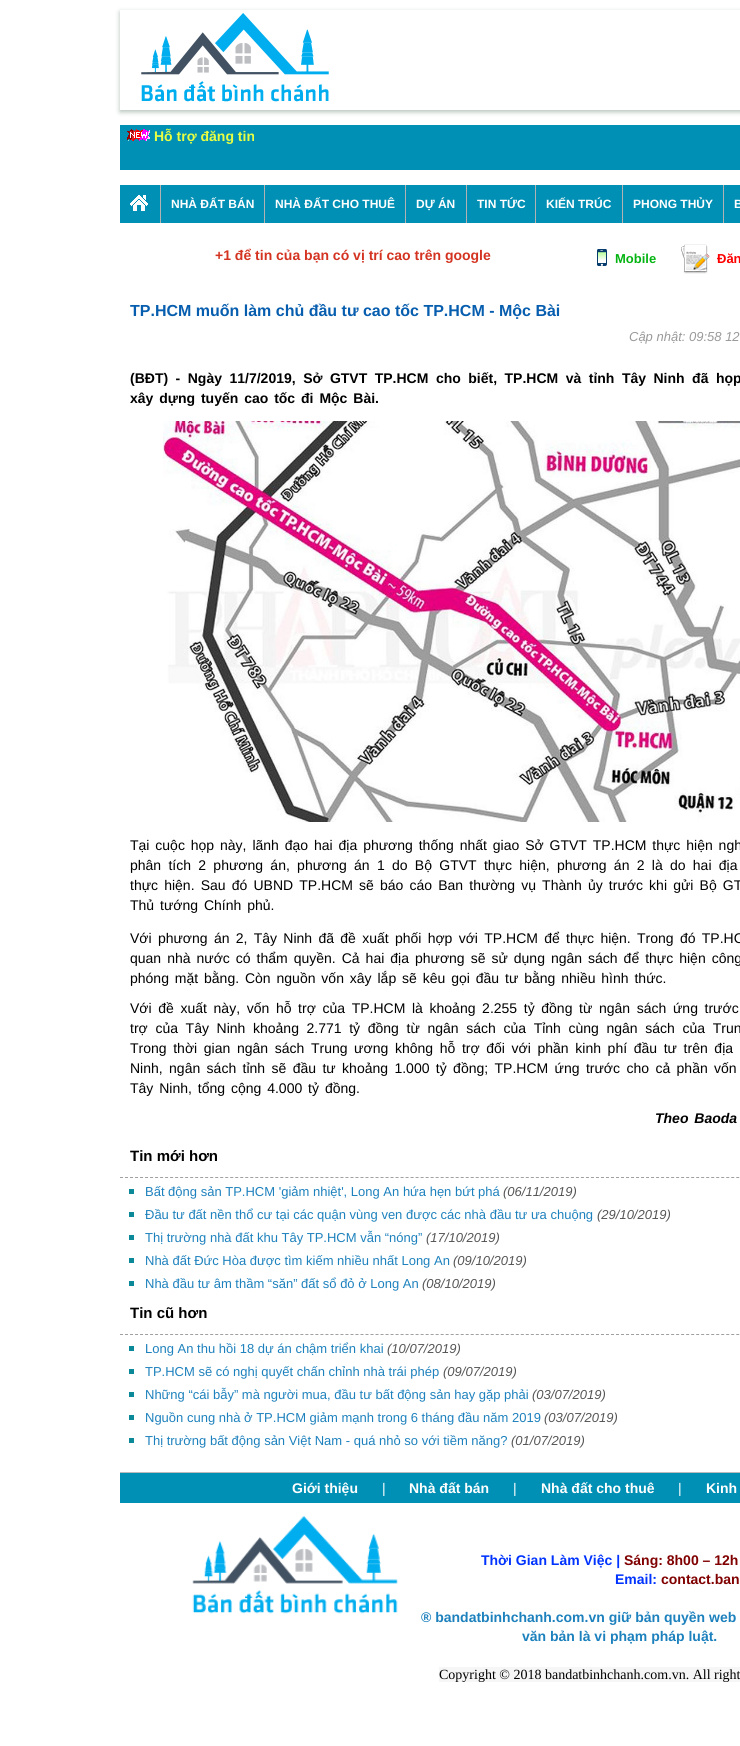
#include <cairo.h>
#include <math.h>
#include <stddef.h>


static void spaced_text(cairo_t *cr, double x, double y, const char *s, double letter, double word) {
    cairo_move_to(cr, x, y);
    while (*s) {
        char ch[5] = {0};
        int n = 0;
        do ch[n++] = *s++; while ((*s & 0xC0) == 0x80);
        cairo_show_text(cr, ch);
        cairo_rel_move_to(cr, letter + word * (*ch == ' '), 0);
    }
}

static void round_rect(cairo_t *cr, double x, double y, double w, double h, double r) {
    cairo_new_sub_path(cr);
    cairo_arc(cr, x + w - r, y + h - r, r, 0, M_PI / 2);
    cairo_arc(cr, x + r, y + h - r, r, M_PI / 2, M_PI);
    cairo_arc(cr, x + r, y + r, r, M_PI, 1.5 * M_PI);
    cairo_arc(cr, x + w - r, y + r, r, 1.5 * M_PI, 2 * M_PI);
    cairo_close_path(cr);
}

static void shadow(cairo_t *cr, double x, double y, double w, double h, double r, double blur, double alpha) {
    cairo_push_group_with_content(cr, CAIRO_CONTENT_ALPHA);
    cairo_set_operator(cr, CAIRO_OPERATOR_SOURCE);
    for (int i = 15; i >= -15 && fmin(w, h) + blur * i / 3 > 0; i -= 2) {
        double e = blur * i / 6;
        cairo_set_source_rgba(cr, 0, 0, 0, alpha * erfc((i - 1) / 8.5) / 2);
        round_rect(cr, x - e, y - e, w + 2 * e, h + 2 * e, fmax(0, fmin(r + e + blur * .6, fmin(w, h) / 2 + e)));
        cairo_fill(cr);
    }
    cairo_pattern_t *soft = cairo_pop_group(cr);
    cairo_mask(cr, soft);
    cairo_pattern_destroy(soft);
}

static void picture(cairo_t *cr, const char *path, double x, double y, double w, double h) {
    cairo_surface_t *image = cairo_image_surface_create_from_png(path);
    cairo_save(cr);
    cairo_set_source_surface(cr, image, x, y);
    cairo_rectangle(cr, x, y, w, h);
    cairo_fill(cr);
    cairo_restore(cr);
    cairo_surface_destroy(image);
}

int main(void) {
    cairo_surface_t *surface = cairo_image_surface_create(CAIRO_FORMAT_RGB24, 740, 1746);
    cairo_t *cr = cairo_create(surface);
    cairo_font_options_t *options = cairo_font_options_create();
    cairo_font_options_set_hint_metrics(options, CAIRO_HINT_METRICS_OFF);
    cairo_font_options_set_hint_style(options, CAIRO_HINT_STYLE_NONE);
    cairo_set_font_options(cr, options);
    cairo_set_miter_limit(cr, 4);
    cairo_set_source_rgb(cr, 1, 1, 1);
    cairo_paint(cr);
    cairo_save(cr);
    cairo_set_fill_rule(cr, CAIRO_FILL_RULE_EVEN_ODD);
    cairo_new_path(cr);
    cairo_move_to(cr, 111, 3);
    cairo_line_to(cr, 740, 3);
    cairo_line_to(cr, 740, 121);
    cairo_line_to(cr, 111, 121);
    cairo_close_path(cr);
    cairo_move_to(cr, 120, 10);
    cairo_line_to(cr, 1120, 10);
    cairo_line_to(cr, 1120, 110);
    cairo_line_to(cr, 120, 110);
    cairo_close_path(cr);
    cairo_clip(cr);
    cairo_set_source_rgb(cr, 0.02, 0.2, 0.086);
    shadow(cr, 120, 12, 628, 100, 0, 2.5, 0.3);
    cairo_restore(cr);
    picture(cr, "img1.png", 141, 13, 188, 89);
    cairo_set_source_rgb(cr, 0, 0.565, 0.71);
    cairo_rectangle(cr, 120, 125, 620, 45);
    cairo_fill(cr);
    picture(cr, "img2.png", 127, 129, 23, 12);
    cairo_select_font_face(cr, "Liberation Sans", CAIRO_FONT_SLANT_NORMAL, CAIRO_FONT_WEIGHT_BOLD);
    cairo_set_font_size(cr, 14);
    cairo_set_source_rgb(cr, 0.91, 1, 0.259);
    cairo_move_to(cr, 154, 141);
    cairo_show_text(cr, "Hỗ trợ đăng tin");
    cairo_set_source_rgb(cr, 0, 0.565, 0.71);
    cairo_rectangle(cr, 120, 185, 620, 38);
    cairo_fill(cr);
    cairo_set_source_rgb(cr, 0.698, 0.698, 0.698);
    cairo_rectangle(cr, 160, 185, 1, 38);
    cairo_fill(cr);
    picture(cr, "img3.png", 130, 195, 18, 16);
    cairo_rectangle(cr, 264, 185, 1, 38);
    cairo_fill(cr);
    cairo_set_font_size(cr, 12);
    cairo_set_source_rgb(cr, 1, 1, 1);
    cairo_move_to(cr, 171, 208);
    cairo_show_text(cr, "NHÀ ĐẤT BÁN");
    cairo_set_source_rgb(cr, 0.698, 0.698, 0.698);
    cairo_rectangle(cr, 405, 185, 1, 38);
    cairo_fill(cr);
    cairo_set_source_rgb(cr, 1, 1, 1);
    cairo_move_to(cr, 275, 208);
    cairo_show_text(cr, "NHÀ ĐẤT CHO THUÊ");
    cairo_set_source_rgb(cr, 0.698, 0.698, 0.698);
    cairo_rectangle(cr, 466, 185, 1, 38);
    cairo_fill(cr);
    cairo_set_source_rgb(cr, 1, 1, 1);
    cairo_move_to(cr, 416, 208);
    cairo_show_text(cr, "DỰ ÁN");
    cairo_set_source_rgb(cr, 0.698, 0.698, 0.698);
    cairo_rectangle(cr, 535, 185, 1, 38);
    cairo_fill(cr);
    cairo_set_source_rgb(cr, 1, 1, 1);
    cairo_move_to(cr, 477, 208);
    cairo_show_text(cr, "TIN TỨC");
    cairo_set_source_rgb(cr, 0.698, 0.698, 0.698);
    cairo_rectangle(cr, 622, 185, 1, 38);
    cairo_fill(cr);
    cairo_set_source_rgb(cr, 1, 1, 1);
    cairo_move_to(cr, 546, 208);
    cairo_show_text(cr, "KIẾN TRÚC");
    cairo_set_source_rgb(cr, 0.698, 0.698, 0.698);
    cairo_rectangle(cr, 723, 185, 1, 38);
    cairo_fill(cr);
    cairo_set_source_rgb(cr, 1, 1, 1);
    cairo_move_to(cr, 633, 208);
    cairo_show_text(cr, "PHONG THỦY");
    cairo_move_to(cr, 734, 208);
    cairo_show_text(cr, "B");
    cairo_set_font_size(cr, 14);
    cairo_set_source_rgb(cr, 0.827, 0.2, 0.125);
    cairo_move_to(cr, 215, 260);
    cairo_show_text(cr, "+1 để tin của bạn có vị trí cao trên google");
    picture(cr, "img4.png", 597, 249, 10, 17);
    cairo_set_font_size(cr, 13);
    cairo_set_source_rgb(cr, 0.02, 0.706, 0.075);
    cairo_move_to(cr, 615, 263);
    cairo_show_text(cr, "Mobile");
    picture(cr, "img5.png", 681, 244, 29, 30);
    cairo_set_source_rgb(cr, 1, 0, 0);
    cairo_move_to(cr, 717, 263);
    cairo_show_text(cr, "Đăn");
    cairo_set_font_size(cr, 16);
    cairo_set_source_rgb(cr, 0.031, 0.369, 0.686);
    cairo_move_to(cr, 130, 316);
    cairo_show_text(cr, "TP.HCM muốn làm chủ đầu tư cao tốc TP.HCM - Mộc Bài");
    cairo_select_font_face(cr, "Liberation Sans", CAIRO_FONT_SLANT_ITALIC, CAIRO_FONT_WEIGHT_NORMAL);
    cairo_set_font_size(cr, 13);
    cairo_set_source_rgb(cr, 0.6, 0.6, 0.6);
    cairo_move_to(cr, 629, 341);
    cairo_show_text(cr, "Cập nhật: 09:58 12");
    cairo_select_font_face(cr, "Liberation Sans", CAIRO_FONT_SLANT_NORMAL, CAIRO_FONT_WEIGHT_BOLD);
    cairo_set_font_size(cr, 14);
    cairo_set_source_rgb(cr, 0, 0, 0);
    spaced_text(cr, 130, 383, "(BĐT) - Ngày 11/7/2019, Sở GTVT TP.HCM cho biết, TP.HCM và tỉnh Tây Ninh đã họp", 0, 3.6);
    spaced_text(cr, 130, 403, "xây dựng tuyến cao tốc đi Mộc Bài.", 0, 2);
    picture(cr, "img6.png", 163, 421, 577, 401);
    cairo_select_font_face(cr, "Liberation Sans", CAIRO_FONT_SLANT_NORMAL, CAIRO_FONT_WEIGHT_NORMAL);
    spaced_text(cr, 130, 850, "Tại cuộc họp này, lãnh đạo hai địa phương thống nhất giao Sở GTVT TP.HCM thực hiện ngh", 0, 2);
    spaced_text(cr, 130, 870, "phân tích 2 phương án, phương án 1 do Bộ GTVT thực hiện, phương án 2 là do hai địa", 0, 3.4);
    spaced_text(cr, 130, 890, "thực hiện. Sau đó UBND TP.HCM sẽ báo cáo Ban thường vụ Thành ủy trước khi gửi Bộ GT", 0, 2.25);
    spaced_text(cr, 130, 910, "Thủ tướng Chính phủ.", 0, 2);
    spaced_text(cr, 130, 943, "Với phương án 2, Tây Ninh đã đề xuất phối hợp với TP.HCM để thực hiện. Trong đó TP.HC", 0, 2.4);
    spaced_text(cr, 130, 963, "quan nhà nước có thẩm quyền. Cả hai địa phương sẽ sử dụng ngân sách để thực hiện công", 0, 2.1);
    spaced_text(cr, 130, 983, "phóng mặt bằng. Còn nguồn vốn xây lắp sẽ kêu gọi đầu tư bằng nhiều hình thức.", 0, 2);
    spaced_text(cr, 130, 1013, "Với đề xuất này, vốn hỗ trợ của TP.HCM là khoảng 2.255 tỷ đồng từ ngân sách ứng trước.", 0, 2.75);
    spaced_text(cr, 130, 1033, "trợ của Tây Ninh khoảng 2.771 tỷ đồng từ ngân sách của Tỉnh cùng ngân sách của Trun", 0, 3.75);
    spaced_text(cr, 130, 1053, "Trong thời gian ngân sách Trung ương không hỗ trợ đối với phần kinh phí đầu tư trên địa", 0, 2.75);
    spaced_text(cr, 130, 1073, "Ninh, ngân sách tỉnh sẽ đầu tư khoảng 1.000 tỷ đồng; TP.HCM ứng trước cho cả phần vốn", 0, 2.5);
    spaced_text(cr, 130, 1093, "Tây Ninh, tổng cộng 4.000 tỷ đồng.", 0, 2);
    cairo_select_font_face(cr, "Liberation Sans", CAIRO_FONT_SLANT_ITALIC, CAIRO_FONT_WEIGHT_BOLD);
    spaced_text(cr, 655, 1123, "Theo Baoda", 0, 2);
    cairo_select_font_face(cr, "Liberation Sans", CAIRO_FONT_SLANT_NORMAL, CAIRO_FONT_WEIGHT_BOLD);
    cairo_set_font_size(cr, 15);
    cairo_move_to(cr, 130, 1161);
    cairo_show_text(cr, "Tin mới hơn");
    cairo_new_path(cr);
    cairo_move_to(cr, 120, 1177.5);
    cairo_line_to(cr, 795, 1177.5);
    cairo_set_source_rgb(cr, 0.627, 0.627, 0.627);
    cairo_set_line_width(cr, 1);
    cairo_set_dash(cr, (double[]){3, 2.01}, 2, 0);
    cairo_stroke(cr);
    cairo_set_source_rgb(cr, 0.047, 0.537, 0.6);
    cairo_rectangle(cr, 129, 1189, 5, 5);
    cairo_fill(cr);
    cairo_select_font_face(cr, "Liberation Sans", CAIRO_FONT_SLANT_NORMAL, CAIRO_FONT_WEIGHT_NORMAL);
    cairo_set_font_size(cr, 13);
    cairo_set_source_rgb(cr, 0.114, 0.506, 0.741);
    cairo_move_to(cr, 145, 1196);
    cairo_show_text(cr, "Bất động sản TP.HCM 'giảm nhiệt', Long An hứa hẹn bứt phá");
    cairo_select_font_face(cr, "Liberation Sans", CAIRO_FONT_SLANT_ITALIC, CAIRO_FONT_WEIGHT_NORMAL);
    cairo_set_source_rgb(cr, 0.333, 0.333, 0.333);
    cairo_move_to(cr, 503, 1196);
    cairo_show_text(cr, "(06/11/2019)");
    cairo_set_source_rgb(cr, 0.047, 0.537, 0.6);
    cairo_rectangle(cr, 129, 1212, 5, 5);
    cairo_fill(cr);
    cairo_select_font_face(cr, "Liberation Sans", CAIRO_FONT_SLANT_NORMAL, CAIRO_FONT_WEIGHT_NORMAL);
    cairo_set_source_rgb(cr, 0.114, 0.506, 0.741);
    cairo_move_to(cr, 145, 1219);
    cairo_show_text(cr, "Đầu tư đất nền thổ cư tại các quận vùng ven được các nhà đầu tư ưa chuộng");
    cairo_select_font_face(cr, "Liberation Sans", CAIRO_FONT_SLANT_ITALIC, CAIRO_FONT_WEIGHT_NORMAL);
    cairo_set_source_rgb(cr, 0.333, 0.333, 0.333);
    cairo_move_to(cr, 597, 1219);
    cairo_show_text(cr, "(29/10/2019)");
    cairo_set_source_rgb(cr, 0.047, 0.537, 0.6);
    cairo_rectangle(cr, 129, 1235, 5, 5);
    cairo_fill(cr);
    cairo_select_font_face(cr, "Liberation Sans", CAIRO_FONT_SLANT_NORMAL, CAIRO_FONT_WEIGHT_NORMAL);
    cairo_set_source_rgb(cr, 0.114, 0.506, 0.741);
    cairo_move_to(cr, 145, 1242);
    cairo_show_text(cr, "Thị trường nhà đất khu Tây TP.HCM vẫn “nóng”");
    cairo_select_font_face(cr, "Liberation Sans", CAIRO_FONT_SLANT_ITALIC, CAIRO_FONT_WEIGHT_NORMAL);
    cairo_set_source_rgb(cr, 0.333, 0.333, 0.333);
    cairo_move_to(cr, 426, 1242);
    cairo_show_text(cr, "(17/10/2019)");
    cairo_set_source_rgb(cr, 0.047, 0.537, 0.6);
    cairo_rectangle(cr, 129, 1258, 5, 5);
    cairo_fill(cr);
    cairo_select_font_face(cr, "Liberation Sans", CAIRO_FONT_SLANT_NORMAL, CAIRO_FONT_WEIGHT_NORMAL);
    cairo_set_source_rgb(cr, 0.114, 0.506, 0.741);
    cairo_move_to(cr, 145, 1265);
    cairo_show_text(cr, "Nhà đất Đức Hòa được tìm kiếm nhiều nhất Long An");
    cairo_select_font_face(cr, "Liberation Sans", CAIRO_FONT_SLANT_ITALIC, CAIRO_FONT_WEIGHT_NORMAL);
    cairo_set_source_rgb(cr, 0.333, 0.333, 0.333);
    cairo_move_to(cr, 453, 1265);
    cairo_show_text(cr, "(09/10/2019)");
    cairo_set_source_rgb(cr, 0.047, 0.537, 0.6);
    cairo_rectangle(cr, 129, 1281, 5, 5);
    cairo_fill(cr);
    cairo_select_font_face(cr, "Liberation Sans", CAIRO_FONT_SLANT_NORMAL, CAIRO_FONT_WEIGHT_NORMAL);
    cairo_set_source_rgb(cr, 0.114, 0.506, 0.741);
    cairo_move_to(cr, 145, 1288);
    cairo_show_text(cr, "Nhà đầu tư âm thầm “săn” đất sổ đỏ ở Long An");
    cairo_select_font_face(cr, "Liberation Sans", CAIRO_FONT_SLANT_ITALIC, CAIRO_FONT_WEIGHT_NORMAL);
    cairo_set_source_rgb(cr, 0.333, 0.333, 0.333);
    cairo_move_to(cr, 422, 1288);
    cairo_show_text(cr, "(08/10/2019)");
    cairo_select_font_face(cr, "Liberation Sans", CAIRO_FONT_SLANT_NORMAL, CAIRO_FONT_WEIGHT_BOLD);
    cairo_set_font_size(cr, 15);
    cairo_set_source_rgb(cr, 0, 0, 0);
    cairo_move_to(cr, 130, 1318);
    cairo_show_text(cr, "Tin cũ hơn");
    cairo_new_path(cr);
    cairo_move_to(cr, 120, 1334.5);
    cairo_line_to(cr, 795, 1334.5);
    cairo_set_source_rgb(cr, 0.627, 0.627, 0.627);
    cairo_stroke(cr);
    cairo_set_source_rgb(cr, 0.047, 0.537, 0.6);
    cairo_rectangle(cr, 129, 1346, 5, 5);
    cairo_fill(cr);
    cairo_select_font_face(cr, "Liberation Sans", CAIRO_FONT_SLANT_NORMAL, CAIRO_FONT_WEIGHT_NORMAL);
    cairo_set_font_size(cr, 13);
    cairo_set_source_rgb(cr, 0.114, 0.506, 0.741);
    cairo_move_to(cr, 145, 1353);
    cairo_show_text(cr, "Long An thu hồi 18 dự án chậm triển khai");
    cairo_select_font_face(cr, "Liberation Sans", CAIRO_FONT_SLANT_ITALIC, CAIRO_FONT_WEIGHT_NORMAL);
    cairo_set_source_rgb(cr, 0.333, 0.333, 0.333);
    cairo_move_to(cr, 387, 1353);
    cairo_show_text(cr, "(10/07/2019)");
    cairo_set_source_rgb(cr, 0.047, 0.537, 0.6);
    cairo_rectangle(cr, 129, 1369, 5, 5);
    cairo_fill(cr);
    cairo_select_font_face(cr, "Liberation Sans", CAIRO_FONT_SLANT_NORMAL, CAIRO_FONT_WEIGHT_NORMAL);
    cairo_set_source_rgb(cr, 0.114, 0.506, 0.741);
    cairo_move_to(cr, 145, 1376);
    cairo_show_text(cr, "TP.HCM sẽ có nghị quyết chấn chỉnh nhà trái phép");
    cairo_select_font_face(cr, "Liberation Sans", CAIRO_FONT_SLANT_ITALIC, CAIRO_FONT_WEIGHT_NORMAL);
    cairo_set_source_rgb(cr, 0.333, 0.333, 0.333);
    cairo_move_to(cr, 443, 1376);
    cairo_show_text(cr, "(09/07/2019)");
    cairo_set_source_rgb(cr, 0.047, 0.537, 0.6);
    cairo_rectangle(cr, 129, 1392, 5, 5);
    cairo_fill(cr);
    cairo_select_font_face(cr, "Liberation Sans", CAIRO_FONT_SLANT_NORMAL, CAIRO_FONT_WEIGHT_NORMAL);
    cairo_set_source_rgb(cr, 0.114, 0.506, 0.741);
    cairo_move_to(cr, 145, 1399);
    cairo_show_text(cr, "Những “cái bẫy” mà người mua, đầu tư bất động sản hay gặp phải");
    cairo_select_font_face(cr, "Liberation Sans", CAIRO_FONT_SLANT_ITALIC, CAIRO_FONT_WEIGHT_NORMAL);
    cairo_set_source_rgb(cr, 0.333, 0.333, 0.333);
    cairo_move_to(cr, 532, 1399);
    cairo_show_text(cr, "(03/07/2019)");
    cairo_set_source_rgb(cr, 0.047, 0.537, 0.6);
    cairo_rectangle(cr, 129, 1415, 5, 5);
    cairo_fill(cr);
    cairo_select_font_face(cr, "Liberation Sans", CAIRO_FONT_SLANT_NORMAL, CAIRO_FONT_WEIGHT_NORMAL);
    cairo_set_source_rgb(cr, 0.114, 0.506, 0.741);
    cairo_move_to(cr, 145, 1422);
    cairo_show_text(cr, "Nguồn cung nhà ở TP.HCM giảm mạnh trong 6 tháng đầu năm 2019");
    cairo_select_font_face(cr, "Liberation Sans", CAIRO_FONT_SLANT_ITALIC, CAIRO_FONT_WEIGHT_NORMAL);
    cairo_set_source_rgb(cr, 0.333, 0.333, 0.333);
    cairo_move_to(cr, 544, 1422);
    cairo_show_text(cr, "(03/07/2019)");
    cairo_set_source_rgb(cr, 0.047, 0.537, 0.6);
    cairo_rectangle(cr, 129, 1438, 5, 5);
    cairo_fill(cr);
    cairo_select_font_face(cr, "Liberation Sans", CAIRO_FONT_SLANT_NORMAL, CAIRO_FONT_WEIGHT_NORMAL);
    cairo_set_source_rgb(cr, 0.114, 0.506, 0.741);
    cairo_move_to(cr, 145, 1445);
    cairo_show_text(cr, "Thị trường bất động sản Việt Nam - quá nhỏ so với tiềm năng?");
    cairo_select_font_face(cr, "Liberation Sans", CAIRO_FONT_SLANT_ITALIC, CAIRO_FONT_WEIGHT_NORMAL);
    cairo_set_source_rgb(cr, 0.333, 0.333, 0.333);
    cairo_move_to(cr, 511, 1445);
    cairo_show_text(cr, "(01/07/2019)");
    cairo_set_source_rgb(cr, 0, 0.565, 0.71);
    cairo_rectangle(cr, 120, 1473, 620, 30);
    cairo_fill(cr);
    cairo_set_source_rgb(cr, 0.733, 0.733, 0.733);
    cairo_rectangle(cr, 120, 1472, 620, 1);
    cairo_fill(cr);
    cairo_select_font_face(cr, "Liberation Sans", CAIRO_FONT_SLANT_NORMAL, CAIRO_FONT_WEIGHT_BOLD);
    cairo_set_font_size(cr, 14);
    cairo_set_source_rgb(cr, 1, 1, 1);
    cairo_move_to(cr, 292, 1493);
    cairo_show_text(cr, "Giới thiệu");
    cairo_select_font_face(cr, "Liberation Sans", CAIRO_FONT_SLANT_NORMAL, CAIRO_FONT_WEIGHT_NORMAL);
    cairo_move_to(cr, 382, 1493);
    cairo_show_text(cr, "|");
    cairo_select_font_face(cr, "Liberation Sans", CAIRO_FONT_SLANT_NORMAL, CAIRO_FONT_WEIGHT_BOLD);
    cairo_move_to(cr, 409, 1493);
    cairo_show_text(cr, "Nhà đất bán");
    cairo_select_font_face(cr, "Liberation Sans", CAIRO_FONT_SLANT_NORMAL, CAIRO_FONT_WEIGHT_NORMAL);
    cairo_move_to(cr, 513, 1493);
    cairo_show_text(cr, "|");
    cairo_select_font_face(cr, "Liberation Sans", CAIRO_FONT_SLANT_NORMAL, CAIRO_FONT_WEIGHT_BOLD);
    cairo_move_to(cr, 541, 1493);
    cairo_show_text(cr, "Nhà đất cho thuê");
    cairo_select_font_face(cr, "Liberation Sans", CAIRO_FONT_SLANT_NORMAL, CAIRO_FONT_WEIGHT_NORMAL);
    cairo_move_to(cr, 678, 1493);
    cairo_show_text(cr, "|");
    cairo_select_font_face(cr, "Liberation Sans", CAIRO_FONT_SLANT_NORMAL, CAIRO_FONT_WEIGHT_BOLD);
    cairo_move_to(cr, 706, 1493);
    cairo_show_text(cr, "Kinh");
    picture(cr, "img7.png", 192, 1516, 206, 98);
    cairo_set_source_rgb(cr, 0, 0.2, 1);
    cairo_move_to(cr, 481, 1565);
    cairo_show_text(cr, "Thời Gian Làm Việc |");
    cairo_set_source_rgb(cr, 0.502, 0, 0);
    cairo_move_to(cr, 624, 1565);
    cairo_show_text(cr, "Sáng: 8h00 – 12h");
    cairo_set_source_rgb(cr, 0, 0.2, 1);
    cairo_move_to(cr, 615, 1584);
    cairo_show_text(cr, "Email:");
    cairo_set_source_rgb(cr, 0.502, 0, 0);
    cairo_move_to(cr, 661, 1584);
    cairo_show_text(cr, "contact.ban");
    cairo_set_source_rgb(cr, 0.114, 0.506, 0.741);
    cairo_move_to(cr, 421, 1622);
    cairo_show_text(cr, "® bandatbinhchanh.com.vn giữ bản quyền web");
    cairo_move_to(cr, 522, 1641);
    cairo_show_text(cr, "văn bản là vi phạm pháp luật.");
    cairo_set_source_rgb(cr, 0.961, 0.961, 0.961);
    cairo_rectangle(cr, 439, 1667, 301, 15);
    cairo_fill(cr);
    cairo_select_font_face(cr, "Liberation Serif", CAIRO_FONT_SLANT_NORMAL, CAIRO_FONT_WEIGHT_NORMAL);
    cairo_set_source_rgb(cr, 0, 0, 0);
    cairo_move_to(cr, 439, 1679);
    cairo_show_text(cr, "Copyright © 2018 bandatbinhchanh.com.vn. All right");
    cairo_surface_write_to_png(surface, "page.png");
    cairo_font_options_destroy(options);
    cairo_destroy(cr);
    cairo_surface_destroy(surface);
    return 0;
}
